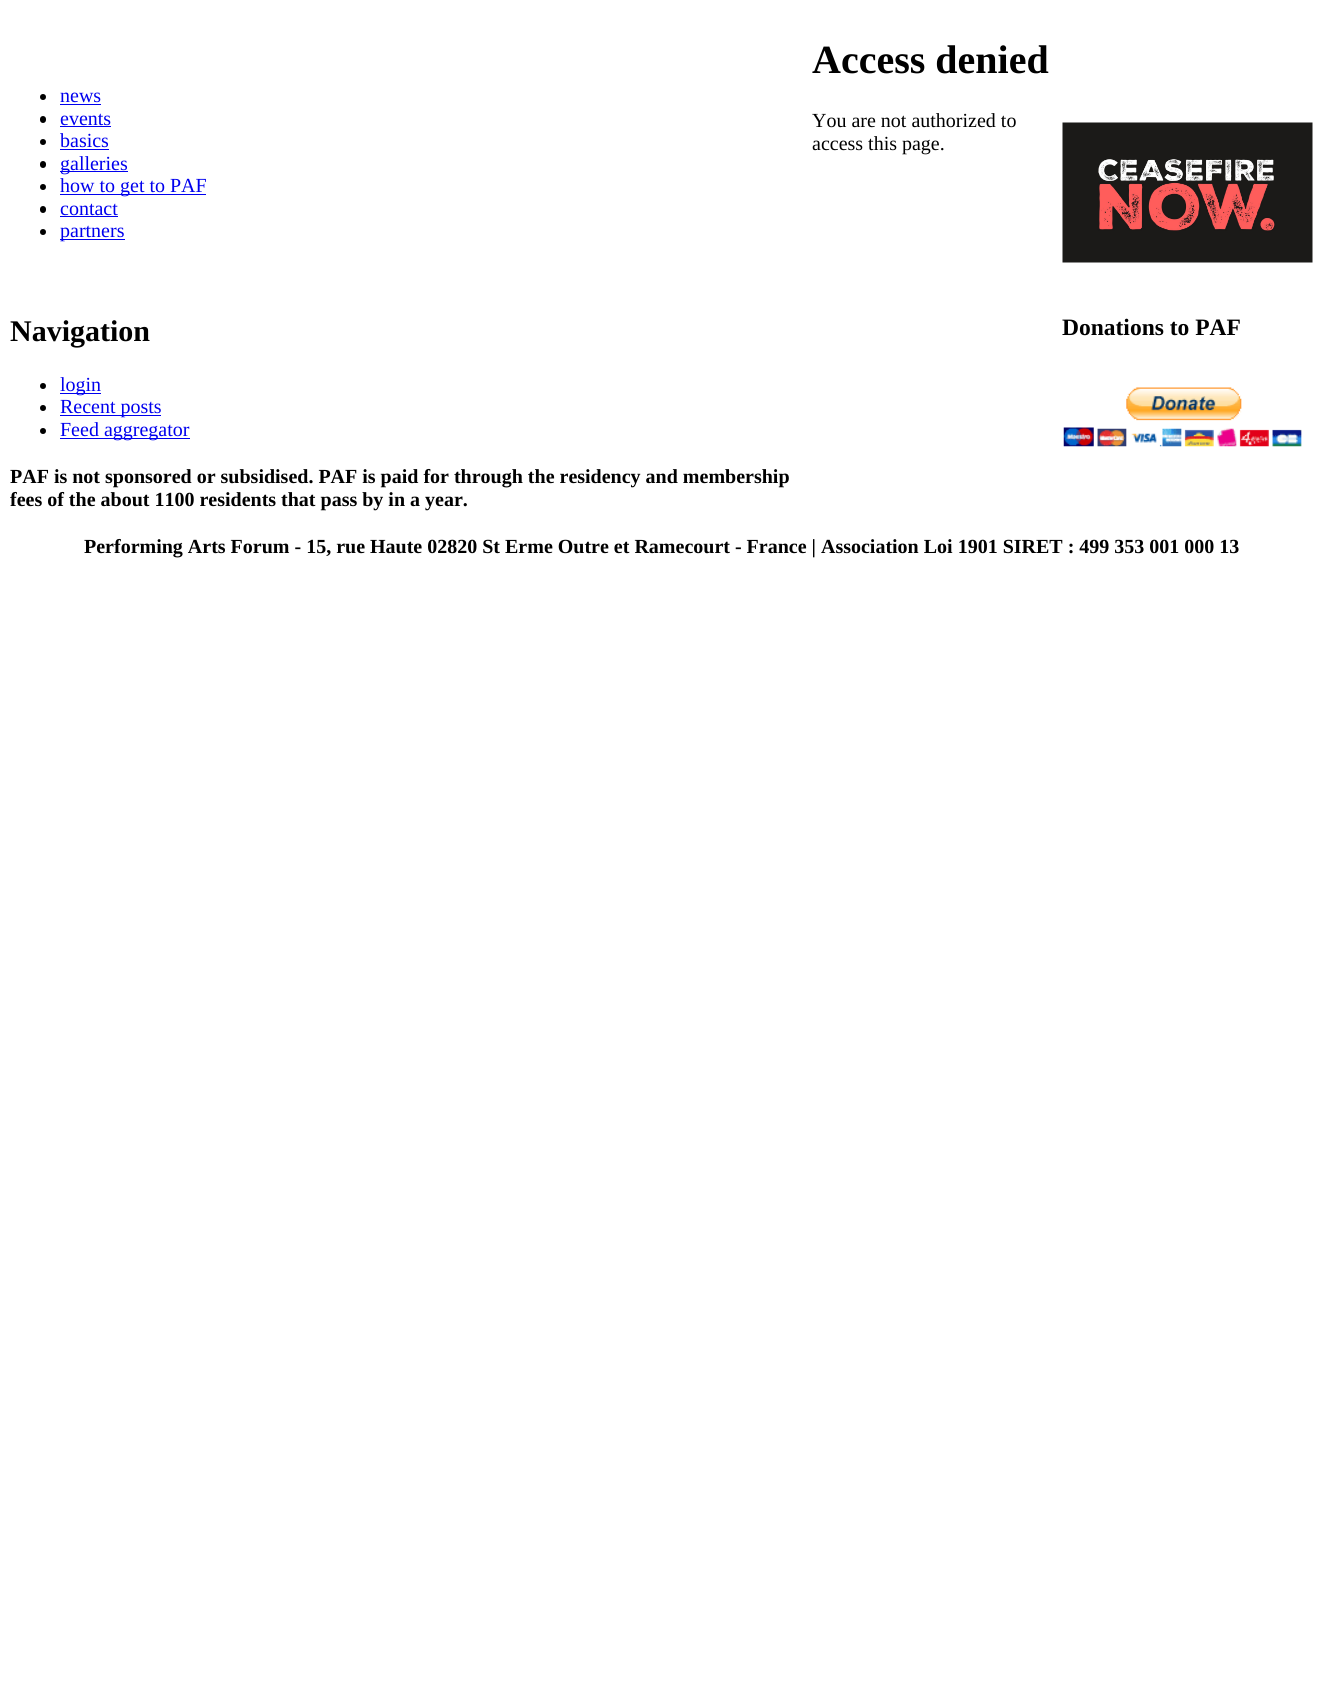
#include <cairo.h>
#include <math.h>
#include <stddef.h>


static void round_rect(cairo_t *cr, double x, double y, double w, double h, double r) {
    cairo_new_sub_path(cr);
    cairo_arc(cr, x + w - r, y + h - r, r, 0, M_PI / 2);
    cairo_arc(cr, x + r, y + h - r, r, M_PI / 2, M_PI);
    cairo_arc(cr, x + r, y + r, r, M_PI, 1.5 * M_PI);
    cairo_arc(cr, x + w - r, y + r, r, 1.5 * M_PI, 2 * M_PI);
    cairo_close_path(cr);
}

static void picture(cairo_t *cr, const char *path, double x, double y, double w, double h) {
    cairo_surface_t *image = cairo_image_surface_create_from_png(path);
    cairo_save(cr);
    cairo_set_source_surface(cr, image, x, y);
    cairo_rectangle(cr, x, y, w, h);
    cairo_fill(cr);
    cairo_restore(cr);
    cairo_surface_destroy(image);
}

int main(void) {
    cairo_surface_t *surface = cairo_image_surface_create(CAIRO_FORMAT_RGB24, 1322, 1689);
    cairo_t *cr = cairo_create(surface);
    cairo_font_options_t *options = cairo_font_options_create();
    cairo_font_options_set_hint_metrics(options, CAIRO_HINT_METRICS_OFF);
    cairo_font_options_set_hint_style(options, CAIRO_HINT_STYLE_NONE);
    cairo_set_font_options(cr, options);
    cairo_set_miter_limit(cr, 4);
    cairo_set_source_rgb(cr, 1, 1, 1);
    cairo_paint(cr);
    cairo_set_source_rgb(cr, 0, 0, 0);
    cairo_arc(cr, 43, 97, 3, 0, 2 * M_PI);
    cairo_fill(cr);
    cairo_select_font_face(cr, "Liberation Serif", CAIRO_FONT_SLANT_NORMAL, CAIRO_FONT_WEIGHT_NORMAL);
    cairo_set_font_size(cr, 20);
    cairo_set_source_rgb(cr, 0, 0, 0.933);
    cairo_move_to(cr, 60, 102);
    cairo_show_text(cr, "news");
    cairo_rectangle(cr, 60, 104, 41, 1);
    cairo_fill(cr);
    cairo_set_source_rgb(cr, 0, 0, 0);
    round_rect(cr, 40, 116, 6, 7, 3);
    cairo_fill(cr);
    cairo_set_source_rgb(cr, 0, 0, 0.933);
    cairo_move_to(cr, 60, 125);
    cairo_show_text(cr, "events");
    cairo_rectangle(cr, 60, 126, 51, 1);
    cairo_fill(cr);
    cairo_set_source_rgb(cr, 0, 0, 0);
    cairo_arc(cr, 43, 142, 3, 0, 2 * M_PI);
    cairo_fill(cr);
    cairo_set_source_rgb(cr, 0, 0, 0.933);
    cairo_move_to(cr, 60, 147);
    cairo_show_text(cr, "basics");
    cairo_rectangle(cr, 60, 149, 49, 1);
    cairo_fill(cr);
    cairo_set_source_rgb(cr, 0, 0, 0);
    round_rect(cr, 40, 161, 6, 7, 3);
    cairo_fill(cr);
    cairo_set_source_rgb(cr, 0, 0, 0.933);
    cairo_rectangle(cr, 60, 171, 68, 1);
    cairo_fill(cr);
    cairo_move_to(cr, 60, 170);
    cairo_show_text(cr, "galleries");
    cairo_set_source_rgb(cr, 0, 0, 0);
    cairo_new_path(cr);
    cairo_arc(cr, 43, 187, 3, 0, 2 * M_PI);
    cairo_fill(cr);
    cairo_set_source_rgb(cr, 0, 0, 0.933);
    cairo_rectangle(cr, 60, 194, 146, 1);
    cairo_fill(cr);
    cairo_move_to(cr, 60, 192);
    cairo_show_text(cr, "how to get to PAF");
    cairo_set_source_rgb(cr, 0, 0, 0);
    round_rect(cr, 40, 206, 6, 7, 3);
    cairo_fill(cr);
    cairo_set_source_rgb(cr, 0, 0, 0.933);
    cairo_move_to(cr, 60, 215);
    cairo_show_text(cr, "contact");
    cairo_rectangle(cr, 60, 216, 58, 1);
    cairo_fill(cr);
    cairo_set_source_rgb(cr, 0, 0, 0);
    cairo_arc(cr, 43, 232, 3, 0, 2 * M_PI);
    cairo_fill(cr);
    cairo_set_source_rgb(cr, 0, 0, 0.933);
    cairo_rectangle(cr, 60, 239, 65, 1);
    cairo_fill(cr);
    cairo_move_to(cr, 60, 237);
    cairo_show_text(cr, "partners");
    cairo_select_font_face(cr, "Liberation Serif", CAIRO_FONT_SLANT_NORMAL, CAIRO_FONT_WEIGHT_BOLD);
    cairo_set_font_size(cr, 30);
    cairo_set_source_rgb(cr, 0, 0, 0);
    cairo_move_to(cr, 10, 341);
    cairo_show_text(cr, "Navigation");
    cairo_new_path(cr);
    cairo_arc(cr, 43, 386, 3, 0, 2 * M_PI);
    cairo_fill(cr);
    cairo_set_source_rgb(cr, 0, 0, 0.933);
    cairo_rectangle(cr, 60, 393, 41, 1);
    cairo_fill(cr);
    cairo_select_font_face(cr, "Liberation Serif", CAIRO_FONT_SLANT_NORMAL, CAIRO_FONT_WEIGHT_NORMAL);
    cairo_set_font_size(cr, 20);
    cairo_move_to(cr, 60, 391);
    cairo_show_text(cr, "login");
    cairo_set_source_rgb(cr, 0, 0, 0);
    cairo_new_path(cr);
    cairo_arc(cr, 43, 408, 3, 0, 2 * M_PI);
    cairo_fill(cr);
    cairo_set_source_rgb(cr, 0, 0, 0.933);
    cairo_rectangle(cr, 60, 415, 101, 1);
    cairo_fill(cr);
    cairo_move_to(cr, 60, 413);
    cairo_show_text(cr, "Recent posts");
    cairo_set_source_rgb(cr, 0, 0, 0);
    cairo_new_path(cr);
    cairo_arc(cr, 43, 431, 3, 0, 2 * M_PI);
    cairo_fill(cr);
    cairo_set_source_rgb(cr, 0, 0, 0.933);
    cairo_rectangle(cr, 60, 438, 130, 1);
    cairo_fill(cr);
    cairo_move_to(cr, 60, 436);
    cairo_show_text(cr, "Feed aggregator");
    cairo_select_font_face(cr, "Liberation Serif", CAIRO_FONT_SLANT_NORMAL, CAIRO_FONT_WEIGHT_BOLD);
    cairo_set_source_rgb(cr, 0, 0, 0);
    cairo_move_to(cr, 10, 483);
    cairo_show_text(cr, "PAF is not sponsored or subsidised. PAF is paid for through the residency and membership");
    cairo_move_to(cr, 10, 506);
    cairo_show_text(cr, "fees of the about 1100 residents that pass by in a year.");
    cairo_set_font_size(cr, 40);
    cairo_move_to(cr, 812, 73);
    cairo_show_text(cr, "Access denied");
    cairo_select_font_face(cr, "Liberation Serif", CAIRO_FONT_SLANT_NORMAL, CAIRO_FONT_WEIGHT_NORMAL);
    cairo_set_font_size(cr, 20);
    cairo_move_to(cr, 812, 127);
    cairo_show_text(cr, "You are not authorized to");
    cairo_move_to(cr, 812, 150);
    cairo_show_text(cr, "access this page.");
    picture(cr, "img1.png", 1062, 122, 251, 141);
    cairo_select_font_face(cr, "Liberation Serif", CAIRO_FONT_SLANT_NORMAL, CAIRO_FONT_WEIGHT_BOLD);
    cairo_set_font_size(cr, 23.5);
    cairo_move_to(cr, 1062, 335);
    cairo_show_text(cr, "Donations to PAF");
    picture(cr, "img2.png", 1063, 387, 239, 60);
    cairo_set_font_size(cr, 20);
    cairo_move_to(cr, 84, 553);
    cairo_show_text(cr, "Performing Arts Forum - 15, rue Haute 02820 St Erme Outre et Ramecourt - France | Association Loi 1901 SIRET : 499 353 001 000 13");
    cairo_surface_write_to_png(surface, "page.png");
    cairo_font_options_destroy(options);
    cairo_destroy(cr);
    cairo_surface_destroy(surface);
    return 0;
}
